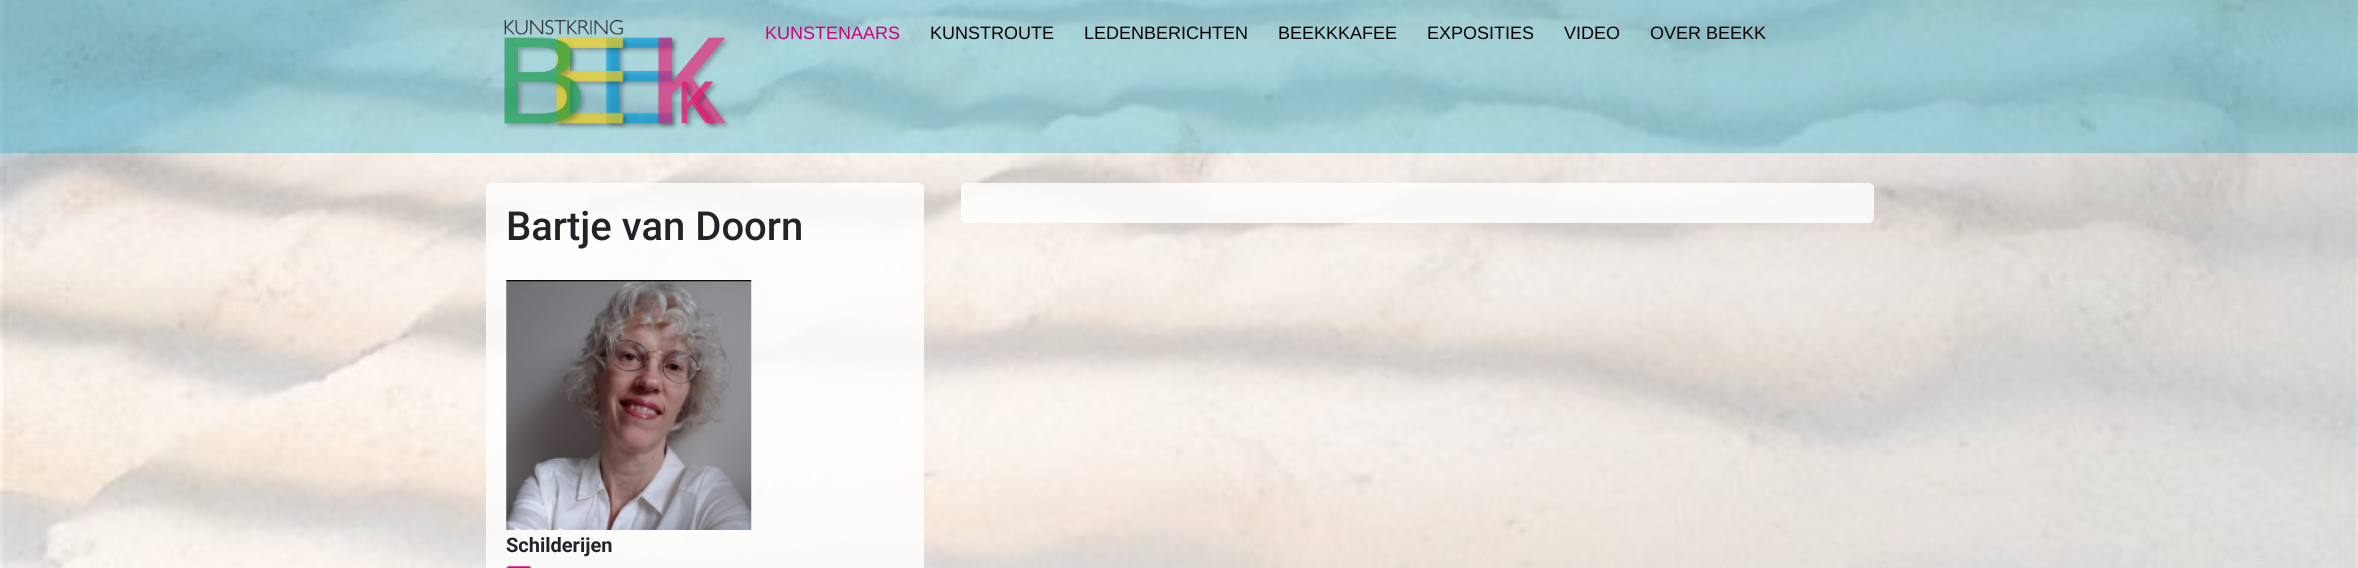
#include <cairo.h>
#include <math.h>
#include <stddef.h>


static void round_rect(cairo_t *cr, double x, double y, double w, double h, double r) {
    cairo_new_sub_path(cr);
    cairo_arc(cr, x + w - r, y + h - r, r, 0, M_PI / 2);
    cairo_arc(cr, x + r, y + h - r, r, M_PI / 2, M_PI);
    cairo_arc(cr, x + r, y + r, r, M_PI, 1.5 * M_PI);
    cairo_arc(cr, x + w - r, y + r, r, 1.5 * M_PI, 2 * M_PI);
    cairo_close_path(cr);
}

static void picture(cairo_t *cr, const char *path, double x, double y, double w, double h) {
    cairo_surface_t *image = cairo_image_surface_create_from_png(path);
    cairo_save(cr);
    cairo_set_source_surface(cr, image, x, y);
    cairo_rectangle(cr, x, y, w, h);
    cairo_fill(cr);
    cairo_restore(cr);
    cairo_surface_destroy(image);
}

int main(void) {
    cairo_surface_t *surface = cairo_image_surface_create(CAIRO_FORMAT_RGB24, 2358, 568);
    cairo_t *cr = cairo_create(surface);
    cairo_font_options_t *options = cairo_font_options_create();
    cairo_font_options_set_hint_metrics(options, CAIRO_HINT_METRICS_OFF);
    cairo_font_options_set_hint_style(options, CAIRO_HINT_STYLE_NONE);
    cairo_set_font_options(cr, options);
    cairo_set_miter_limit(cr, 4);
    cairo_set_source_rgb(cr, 1, 1, 1);
    cairo_paint(cr);
    picture(cr, "img1.png", 0, 0, 2358, 568);
    cairo_set_source_rgba(cr, 0, 0.635, 0.761, 0.3);
    cairo_rectangle(cr, 0, 0, 2358, 153);
    cairo_fill(cr);
    picture(cr, "img2.png", 504, 20, 226, 110);
    cairo_select_font_face(cr, "Liberation Sans", CAIRO_FONT_SLANT_NORMAL, CAIRO_FONT_WEIGHT_NORMAL);
    cairo_set_font_size(cr, 18);
    cairo_set_source_rgb(cr, 0.816, 0, 0.486);
    cairo_move_to(cr, 765, 39);
    cairo_show_text(cr, "KUNSTENAARS");
    cairo_set_source_rgb(cr, 0.016, 0.016, 0.016);
    cairo_move_to(cr, 930, 39);
    cairo_show_text(cr, "KUNSTROUTE");
    cairo_move_to(cr, 1084, 39);
    cairo_show_text(cr, "LEDENBERICHTEN");
    cairo_move_to(cr, 1278, 39);
    cairo_show_text(cr, "BEEKKKAFEE");
    cairo_move_to(cr, 1427, 39);
    cairo_show_text(cr, "EXPOSITIES");
    cairo_move_to(cr, 1564, 39);
    cairo_show_text(cr, "VIDEO");
    cairo_move_to(cr, 1650, 39);
    cairo_show_text(cr, "OVER BEEKK");
    cairo_set_source_rgba(cr, 1, 1, 1, 0.85);
    round_rect(cr, 961, 183, 913, 40, 5);
    cairo_fill(cr);
    round_rect(cr, 486, 183, 438, 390, 5);
    cairo_fill(cr);
    cairo_select_font_face(cr, "Roboto Medium", CAIRO_FONT_SLANT_NORMAL, CAIRO_FONT_WEIGHT_NORMAL);
    cairo_set_font_size(cr, 40);
    cairo_set_source_rgb(cr, 0.129, 0.145, 0.161);
    cairo_move_to(cr, 506, 240);
    cairo_show_text(cr, "Bartje van Doorn");
    picture(cr, "img3.png", 506, 280, 246, 250);
    cairo_select_font_face(cr, "Roboto", CAIRO_FONT_SLANT_NORMAL, CAIRO_FONT_WEIGHT_BOLD);
    cairo_set_font_size(cr, 20);
    cairo_move_to(cr, 506, 552);
    cairo_show_text(cr, "Schilderijen");
    picture(cr, "img4.png", 506, 565, 26, 3);
    cairo_surface_write_to_png(surface, "page.png");
    cairo_font_options_destroy(options);
    cairo_destroy(cr);
    cairo_surface_destroy(surface);
    return 0;
}
